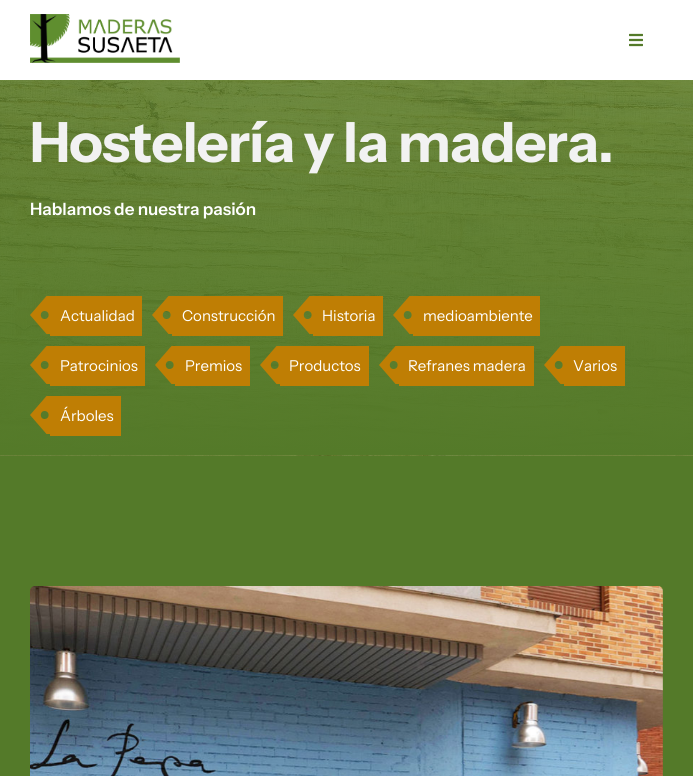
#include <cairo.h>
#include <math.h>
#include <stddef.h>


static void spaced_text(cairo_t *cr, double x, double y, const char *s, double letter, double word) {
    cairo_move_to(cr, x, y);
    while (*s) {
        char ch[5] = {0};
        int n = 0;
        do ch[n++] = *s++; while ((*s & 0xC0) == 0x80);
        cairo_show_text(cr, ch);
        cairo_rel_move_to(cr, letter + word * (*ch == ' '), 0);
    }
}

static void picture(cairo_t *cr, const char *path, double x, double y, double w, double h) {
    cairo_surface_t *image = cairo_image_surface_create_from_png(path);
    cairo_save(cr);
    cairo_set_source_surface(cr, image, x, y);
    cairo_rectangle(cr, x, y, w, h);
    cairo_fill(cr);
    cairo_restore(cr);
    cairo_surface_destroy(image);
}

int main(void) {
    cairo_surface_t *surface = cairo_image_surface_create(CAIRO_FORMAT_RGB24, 693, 776);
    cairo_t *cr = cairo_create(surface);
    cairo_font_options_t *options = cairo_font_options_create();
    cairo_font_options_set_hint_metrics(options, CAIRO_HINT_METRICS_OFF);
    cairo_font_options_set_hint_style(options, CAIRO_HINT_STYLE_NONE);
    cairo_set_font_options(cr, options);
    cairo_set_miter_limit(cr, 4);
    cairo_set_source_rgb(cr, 0.329, 0.478, 0.161);
    cairo_paint(cr);
    cairo_set_source_rgb(cr, 1, 1, 1);
    cairo_rectangle(cr, 0, 0, 693, 80);
    cairo_fill(cr);
    picture(cr, "img1.png", 30, 14, 150, 49);
    picture(cr, "img2.png", 629, 33, 14, 14);
    picture(cr, "img3.png", 0, 80, 693, 376);
    cairo_select_font_face(cr, "Instrument Sans", CAIRO_FONT_SLANT_NORMAL, CAIRO_FONT_WEIGHT_BOLD);
    cairo_set_font_size(cr, 55.5);
    cairo_set_source_rgb(cr, 0.949, 0.949, 0.949);
    spaced_text(cr, 30, 162, "Hostelería y la madera.", -0.8, 0);
    cairo_select_font_face(cr, "Instrument Sans SemiBold", CAIRO_FONT_SLANT_NORMAL, CAIRO_FONT_WEIGHT_NORMAL);
    cairo_set_font_size(cr, 17);
    cairo_set_source_rgb(cr, 1, 1, 1);
    cairo_move_to(cr, 30, 215);
    cairo_show_text(cr, "Hablamos de nuestra pasión");
    cairo_set_source_rgb(cr, 0.749, 0.494, 0.016);
    cairo_set_fill_rule(cr, CAIRO_FILL_RULE_EVEN_ODD);
    cairo_new_path(cr);
    cairo_move_to(cr, 50, 296);
    cairo_line_to(cr, 50, 334);
    cairo_line_to(cr, 46.5, 334);
    cairo_line_to(cr, 30, 315);
    cairo_line_to(cr, 46.5, 296);
    cairo_close_path(cr);
    cairo_move_to(cr, 44.5, 311);
    cairo_curve_to(cr, 39.5, 311, 39.5, 319, 44.5, 319);
    cairo_curve_to(cr, 50, 319, 50, 311, 44.5, 311);
    cairo_close_path(cr);
    cairo_fill(cr);
    cairo_rectangle(cr, 50, 296, 92, 40);
    cairo_fill(cr);
    cairo_select_font_face(cr, "Instrument Sans", CAIRO_FONT_SLANT_NORMAL, CAIRO_FONT_WEIGHT_NORMAL);
    cairo_set_font_size(cr, 15);
    cairo_set_source_rgb(cr, 1, 1, 1);
    cairo_move_to(cr, 60, 321);
    cairo_show_text(cr, "Actualidad");
    cairo_set_source_rgb(cr, 0.749, 0.494, 0.016);
    cairo_new_path(cr);
    cairo_move_to(cr, 172, 296);
    cairo_line_to(cr, 172, 334);
    cairo_line_to(cr, 168.5, 334);
    cairo_line_to(cr, 152, 315);
    cairo_line_to(cr, 168.5, 296);
    cairo_close_path(cr);
    cairo_move_to(cr, 166.5, 311);
    cairo_curve_to(cr, 161.5, 311, 161.5, 319, 166.5, 319);
    cairo_curve_to(cr, 172, 319, 172, 311, 166.5, 311);
    cairo_close_path(cr);
    cairo_fill(cr);
    cairo_rectangle(cr, 172, 296, 111, 40);
    cairo_fill(cr);
    cairo_set_source_rgb(cr, 1, 1, 1);
    cairo_move_to(cr, 182, 321);
    cairo_show_text(cr, "Construcción");
    cairo_set_source_rgb(cr, 0.749, 0.494, 0.016);
    cairo_new_path(cr);
    cairo_move_to(cr, 313, 296);
    cairo_line_to(cr, 313, 334);
    cairo_line_to(cr, 309.5, 334);
    cairo_line_to(cr, 293, 315);
    cairo_line_to(cr, 309.5, 296);
    cairo_close_path(cr);
    cairo_move_to(cr, 307.5, 311);
    cairo_curve_to(cr, 302.5, 311, 302.5, 319, 307.5, 319);
    cairo_curve_to(cr, 313, 319, 313, 311, 307.5, 311);
    cairo_close_path(cr);
    cairo_fill(cr);
    cairo_rectangle(cr, 313, 296, 70, 40);
    cairo_fill(cr);
    cairo_set_source_rgb(cr, 1, 1, 1);
    cairo_move_to(cr, 322, 321);
    cairo_show_text(cr, "Historia");
    cairo_set_source_rgb(cr, 0.749, 0.494, 0.016);
    cairo_new_path(cr);
    cairo_move_to(cr, 413, 296);
    cairo_line_to(cr, 413, 334);
    cairo_line_to(cr, 409.5, 334);
    cairo_line_to(cr, 393, 315);
    cairo_line_to(cr, 409.5, 296);
    cairo_close_path(cr);
    cairo_move_to(cr, 407.5, 311);
    cairo_curve_to(cr, 402.5, 311, 402.5, 319, 407.5, 319);
    cairo_curve_to(cr, 413, 319, 413, 311, 407.5, 311);
    cairo_close_path(cr);
    cairo_fill(cr);
    cairo_rectangle(cr, 413, 296, 127, 40);
    cairo_fill(cr);
    cairo_set_source_rgb(cr, 1, 1, 1);
    cairo_move_to(cr, 423, 321);
    cairo_show_text(cr, "medioambiente");
    cairo_set_source_rgb(cr, 0.749, 0.494, 0.016);
    cairo_new_path(cr);
    cairo_move_to(cr, 50, 346);
    cairo_line_to(cr, 50, 384);
    cairo_line_to(cr, 46.5, 384);
    cairo_line_to(cr, 30, 365);
    cairo_line_to(cr, 46.5, 346);
    cairo_close_path(cr);
    cairo_move_to(cr, 44.5, 361);
    cairo_curve_to(cr, 39.5, 361, 39.5, 369, 44.5, 369);
    cairo_curve_to(cr, 50, 369, 50, 361, 44.5, 361);
    cairo_close_path(cr);
    cairo_fill(cr);
    cairo_rectangle(cr, 50, 346, 95, 40);
    cairo_fill(cr);
    cairo_set_source_rgb(cr, 1, 1, 1);
    cairo_move_to(cr, 60, 371);
    cairo_show_text(cr, "Patrocinios");
    cairo_set_source_rgb(cr, 0.749, 0.494, 0.016);
    cairo_new_path(cr);
    cairo_move_to(cr, 175, 346);
    cairo_line_to(cr, 175, 384);
    cairo_line_to(cr, 171.5, 384);
    cairo_line_to(cr, 155, 365);
    cairo_line_to(cr, 171.5, 346);
    cairo_close_path(cr);
    cairo_move_to(cr, 169.5, 361);
    cairo_curve_to(cr, 164.5, 361, 164.5, 369, 169.5, 369);
    cairo_curve_to(cr, 175, 369, 175, 361, 169.5, 361);
    cairo_close_path(cr);
    cairo_fill(cr);
    cairo_rectangle(cr, 175, 346, 75, 40);
    cairo_fill(cr);
    cairo_set_source_rgb(cr, 1, 1, 1);
    cairo_move_to(cr, 185, 371);
    cairo_show_text(cr, "Premios");
    cairo_set_source_rgb(cr, 0.749, 0.494, 0.016);
    cairo_new_path(cr);
    cairo_move_to(cr, 280, 346);
    cairo_line_to(cr, 280, 384);
    cairo_line_to(cr, 276.5, 384);
    cairo_line_to(cr, 260, 365);
    cairo_line_to(cr, 276.5, 346);
    cairo_close_path(cr);
    cairo_move_to(cr, 274.5, 361);
    cairo_curve_to(cr, 269.5, 361, 269.5, 369, 274.5, 369);
    cairo_curve_to(cr, 280, 369, 280, 361, 274.5, 361);
    cairo_close_path(cr);
    cairo_fill(cr);
    cairo_rectangle(cr, 280, 346, 89, 40);
    cairo_fill(cr);
    cairo_set_source_rgb(cr, 1, 1, 1);
    cairo_move_to(cr, 289, 371);
    cairo_show_text(cr, "Productos");
    cairo_set_source_rgb(cr, 0.749, 0.494, 0.016);
    cairo_new_path(cr);
    cairo_move_to(cr, 399, 346);
    cairo_line_to(cr, 399, 384);
    cairo_line_to(cr, 395.5, 384);
    cairo_line_to(cr, 379, 365);
    cairo_line_to(cr, 395.5, 346);
    cairo_close_path(cr);
    cairo_move_to(cr, 393.5, 361);
    cairo_curve_to(cr, 388.5, 361, 388.5, 369, 393.5, 369);
    cairo_curve_to(cr, 399, 369, 399, 361, 393.5, 361);
    cairo_close_path(cr);
    cairo_fill(cr);
    cairo_rectangle(cr, 399, 346, 135, 40);
    cairo_fill(cr);
    cairo_set_source_rgb(cr, 1, 1, 1);
    cairo_move_to(cr, 408, 371);
    cairo_show_text(cr, "Refranes madera");
    cairo_set_source_rgb(cr, 0.749, 0.494, 0.016);
    cairo_new_path(cr);
    cairo_move_to(cr, 564, 346);
    cairo_line_to(cr, 564, 384);
    cairo_line_to(cr, 560.5, 384);
    cairo_line_to(cr, 544, 365);
    cairo_line_to(cr, 560.5, 346);
    cairo_close_path(cr);
    cairo_move_to(cr, 558.5, 361);
    cairo_curve_to(cr, 553.5, 361, 553.5, 369, 558.5, 369);
    cairo_curve_to(cr, 564, 369, 564, 361, 558.5, 361);
    cairo_close_path(cr);
    cairo_fill(cr);
    cairo_rectangle(cr, 564, 346, 61, 40);
    cairo_fill(cr);
    cairo_set_source_rgb(cr, 1, 1, 1);
    cairo_move_to(cr, 573, 371);
    cairo_show_text(cr, "Varios");
    cairo_set_source_rgb(cr, 0.749, 0.494, 0.016);
    cairo_new_path(cr);
    cairo_move_to(cr, 50, 396);
    cairo_line_to(cr, 50, 434);
    cairo_line_to(cr, 46.5, 434);
    cairo_line_to(cr, 30, 415);
    cairo_line_to(cr, 46.5, 396);
    cairo_close_path(cr);
    cairo_move_to(cr, 44.5, 411);
    cairo_curve_to(cr, 39.5, 411, 39.5, 419, 44.5, 419);
    cairo_curve_to(cr, 50, 419, 50, 411, 44.5, 411);
    cairo_close_path(cr);
    cairo_fill(cr);
    cairo_rectangle(cr, 50, 396, 71, 40);
    cairo_fill(cr);
    cairo_set_source_rgb(cr, 1, 1, 1);
    cairo_move_to(cr, 60, 421);
    cairo_show_text(cr, "Árboles");
    picture(cr, "img4.png", 30, 586, 633, 190);
    cairo_surface_write_to_png(surface, "page.png");
    cairo_font_options_destroy(options);
    cairo_destroy(cr);
    cairo_surface_destroy(surface);
    return 0;
}
